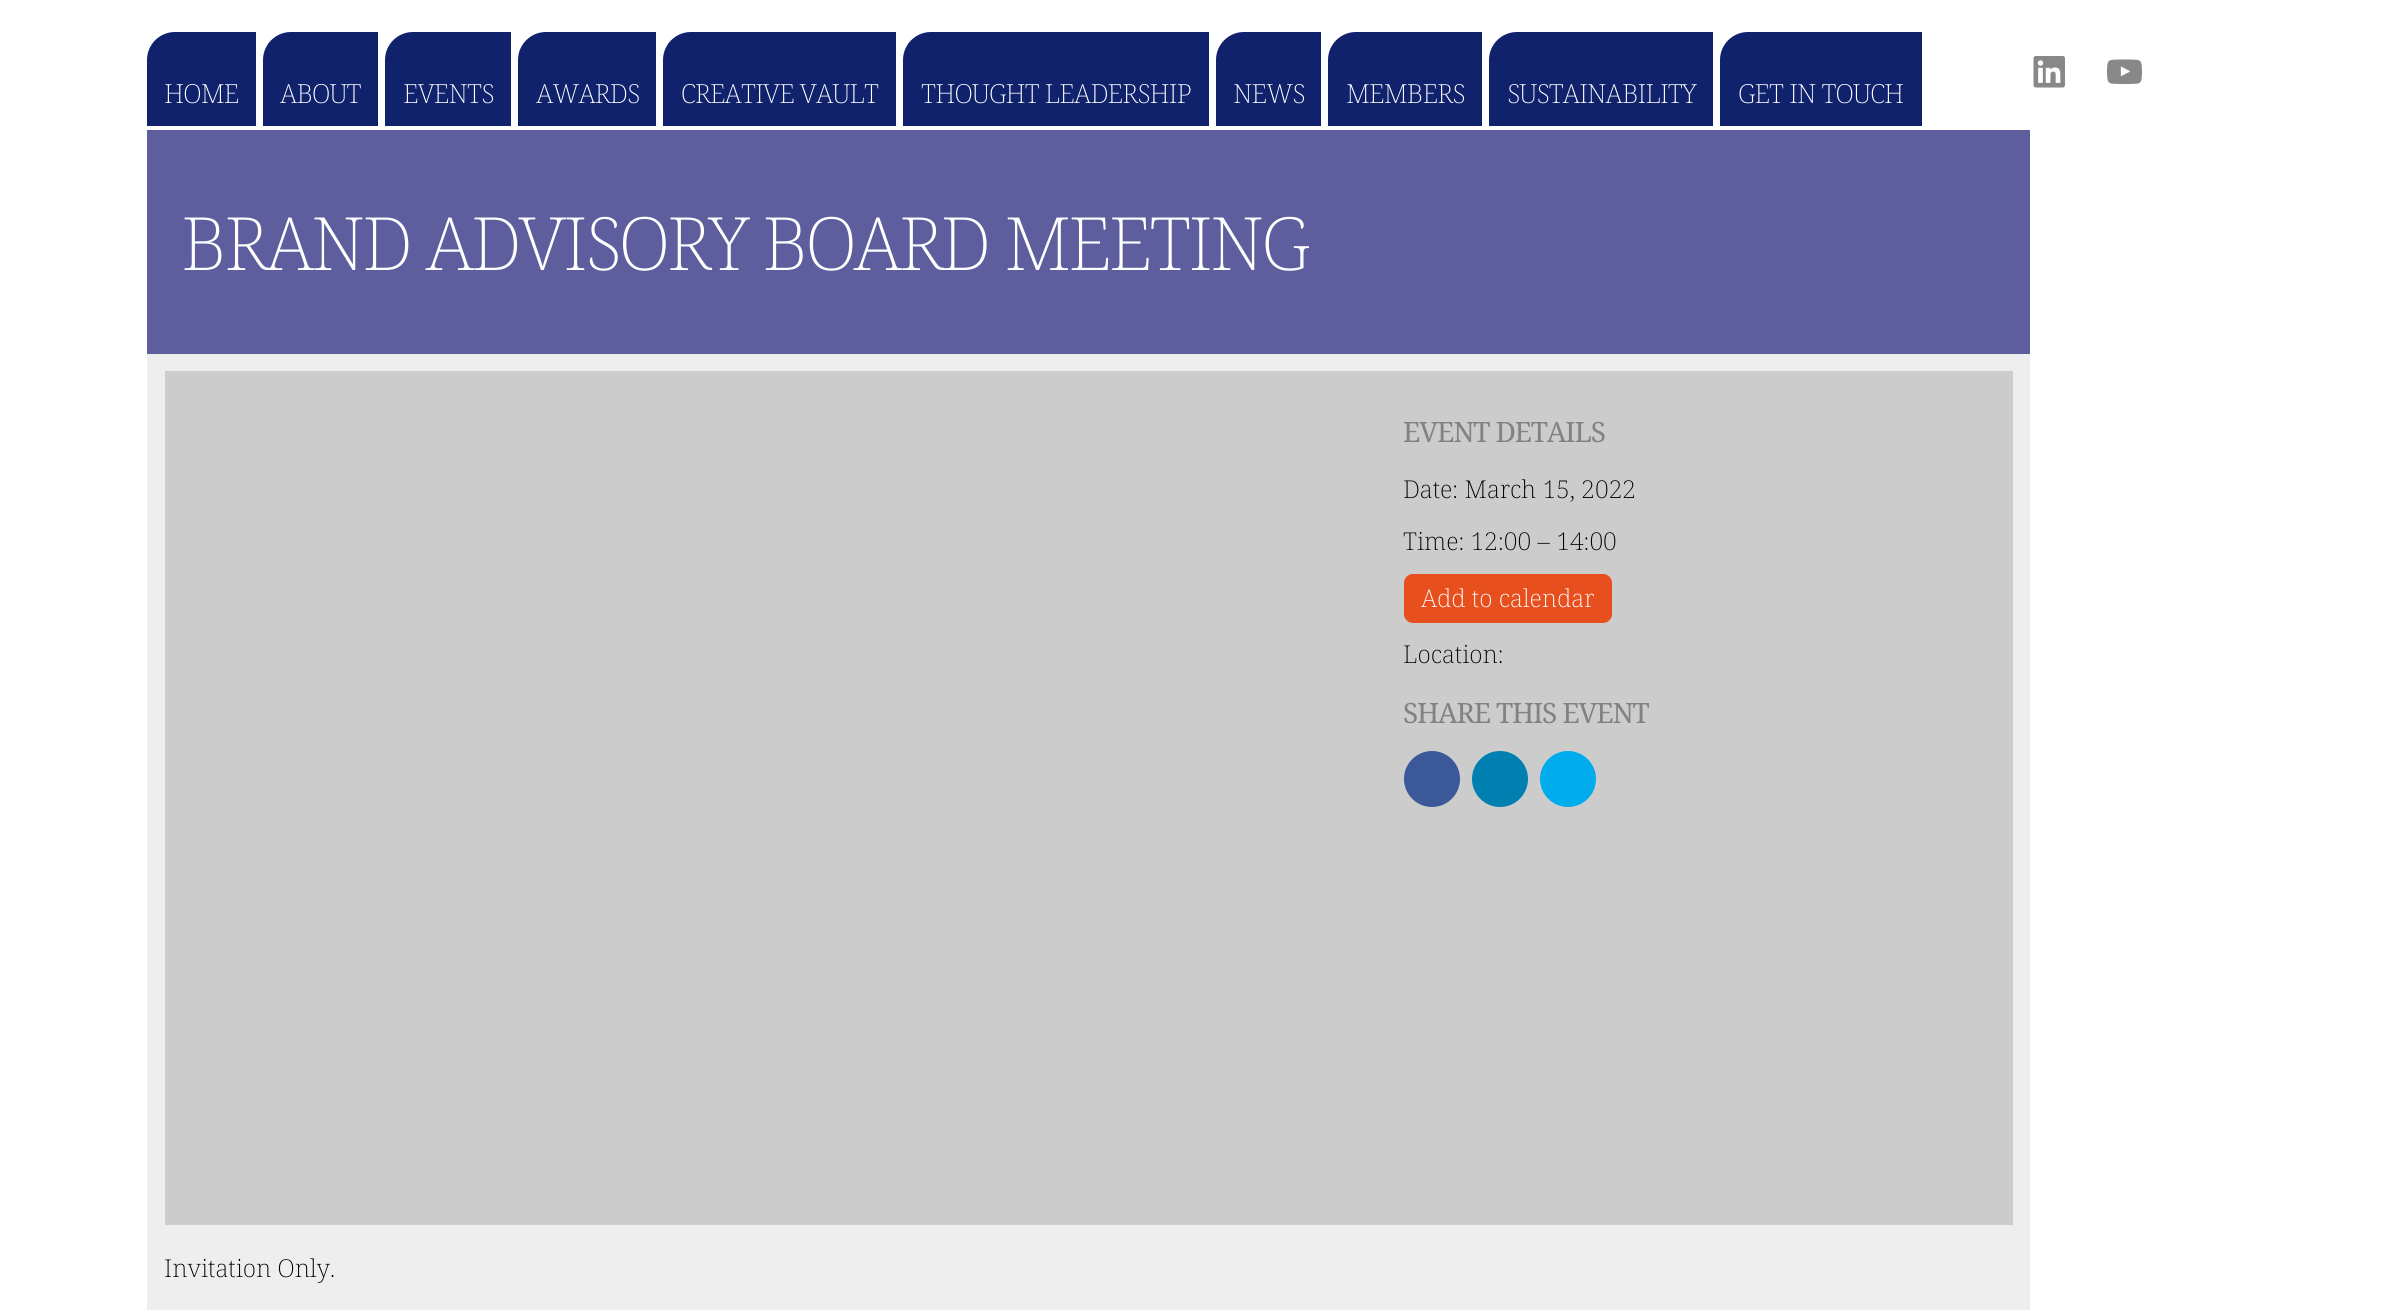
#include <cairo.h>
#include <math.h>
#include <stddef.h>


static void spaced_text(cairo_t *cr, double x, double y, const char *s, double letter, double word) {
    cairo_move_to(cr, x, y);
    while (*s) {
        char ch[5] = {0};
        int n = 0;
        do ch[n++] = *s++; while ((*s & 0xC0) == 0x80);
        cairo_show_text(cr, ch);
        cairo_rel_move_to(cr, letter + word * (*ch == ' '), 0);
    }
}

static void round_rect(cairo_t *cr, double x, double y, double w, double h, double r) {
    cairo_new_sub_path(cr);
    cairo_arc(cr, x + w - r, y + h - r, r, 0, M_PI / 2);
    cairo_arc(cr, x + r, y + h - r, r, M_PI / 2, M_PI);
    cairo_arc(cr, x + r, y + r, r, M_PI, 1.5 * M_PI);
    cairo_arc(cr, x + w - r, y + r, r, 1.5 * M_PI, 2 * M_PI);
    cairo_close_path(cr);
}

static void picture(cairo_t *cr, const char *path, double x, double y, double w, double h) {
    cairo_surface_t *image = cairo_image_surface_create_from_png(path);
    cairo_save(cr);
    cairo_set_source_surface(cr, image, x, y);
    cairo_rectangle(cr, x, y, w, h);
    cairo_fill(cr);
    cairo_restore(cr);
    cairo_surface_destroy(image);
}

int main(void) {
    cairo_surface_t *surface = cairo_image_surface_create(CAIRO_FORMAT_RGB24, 2391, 1310);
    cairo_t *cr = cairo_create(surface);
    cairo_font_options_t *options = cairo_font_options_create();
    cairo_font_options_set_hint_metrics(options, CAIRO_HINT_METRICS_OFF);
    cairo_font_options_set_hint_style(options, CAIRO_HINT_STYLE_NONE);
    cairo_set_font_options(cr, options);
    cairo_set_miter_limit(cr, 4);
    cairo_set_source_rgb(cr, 1, 1, 1);
    cairo_paint(cr);
    picture(cr, "img1.png", 2033, 56, 32, 32);
    picture(cr, "img2.png", 2107, 59, 35, 26);
    cairo_set_source_rgb(cr, 0.063, 0.133, 0.424);
    cairo_new_path(cr);
    cairo_move_to(cr, 175, 32);
    cairo_line_to(cr, 256, 32);
    cairo_line_to(cr, 256, 126);
    cairo_line_to(cr, 147, 126);
    cairo_line_to(cr, 147, 60);
    cairo_curve_to(cr, 147, 44.5, 159.5, 32, 175, 32);
    cairo_close_path(cr);
    cairo_fill(cr);
    cairo_select_font_face(cr, "Noto Serif ExtraLight", CAIRO_FONT_SLANT_NORMAL, CAIRO_FONT_WEIGHT_NORMAL);
    cairo_set_font_size(cr, 26.25);
    cairo_set_source_rgb(cr, 1, 1, 1);
    spaced_text(cr, 164, 103, "HOME", -0.9, 0);
    cairo_set_source_rgb(cr, 0.063, 0.133, 0.424);
    cairo_new_path(cr);
    cairo_move_to(cr, 291, 32);
    cairo_line_to(cr, 378, 32);
    cairo_line_to(cr, 378, 126);
    cairo_line_to(cr, 263, 126);
    cairo_line_to(cr, 263, 60);
    cairo_curve_to(cr, 263, 44.5, 275.5, 32, 291, 32);
    cairo_close_path(cr);
    cairo_fill(cr);
    cairo_set_source_rgb(cr, 1, 1, 1);
    spaced_text(cr, 280, 103, "ABOUT", -0.9, 0);
    cairo_set_source_rgb(cr, 0.063, 0.133, 0.424);
    cairo_new_path(cr);
    cairo_move_to(cr, 413, 32);
    cairo_line_to(cr, 511, 32);
    cairo_line_to(cr, 511, 126);
    cairo_line_to(cr, 385, 126);
    cairo_line_to(cr, 385, 60);
    cairo_curve_to(cr, 385, 44.5, 397.5, 32, 413, 32);
    cairo_close_path(cr);
    cairo_fill(cr);
    cairo_set_source_rgb(cr, 1, 1, 1);
    spaced_text(cr, 403, 103, "EVENTS", -0.9, 0);
    cairo_set_source_rgb(cr, 0.063, 0.133, 0.424);
    cairo_new_path(cr);
    cairo_move_to(cr, 546, 32);
    cairo_line_to(cr, 656, 32);
    cairo_line_to(cr, 656, 126);
    cairo_line_to(cr, 518, 126);
    cairo_line_to(cr, 518, 60);
    cairo_curve_to(cr, 518, 44.5, 530.5, 32, 546, 32);
    cairo_close_path(cr);
    cairo_fill(cr);
    cairo_set_source_rgb(cr, 1, 1, 1);
    spaced_text(cr, 536, 103, "AWARDS", -0.9, 0);
    cairo_set_source_rgb(cr, 0.063, 0.133, 0.424);
    cairo_new_path(cr);
    cairo_move_to(cr, 691, 32);
    cairo_line_to(cr, 896, 32);
    cairo_line_to(cr, 896, 126);
    cairo_line_to(cr, 663, 126);
    cairo_line_to(cr, 663, 60);
    cairo_curve_to(cr, 663, 44.5, 675.5, 32, 691, 32);
    cairo_close_path(cr);
    cairo_fill(cr);
    cairo_set_source_rgb(cr, 1, 1, 1);
    spaced_text(cr, 681, 103, "CREATIVE VAULT", -0.9, 0);
    cairo_set_source_rgb(cr, 0.063, 0.133, 0.424);
    cairo_new_path(cr);
    cairo_move_to(cr, 931, 32);
    cairo_line_to(cr, 1209, 32);
    cairo_line_to(cr, 1209, 126);
    cairo_line_to(cr, 903, 126);
    cairo_line_to(cr, 903, 60);
    cairo_curve_to(cr, 903, 44.5, 915.5, 32, 931, 32);
    cairo_close_path(cr);
    cairo_fill(cr);
    cairo_set_source_rgb(cr, 1, 1, 1);
    spaced_text(cr, 921, 103, "THOUGHT LEADERSHIP", -0.9, 0);
    cairo_set_source_rgb(cr, 0.063, 0.133, 0.424);
    cairo_new_path(cr);
    cairo_move_to(cr, 1244, 32);
    cairo_line_to(cr, 1321, 32);
    cairo_line_to(cr, 1321, 126);
    cairo_line_to(cr, 1216, 126);
    cairo_line_to(cr, 1216, 60);
    cairo_curve_to(cr, 1216, 44.5, 1228.5, 32, 1244, 32);
    cairo_close_path(cr);
    cairo_fill(cr);
    cairo_set_source_rgb(cr, 1, 1, 1);
    spaced_text(cr, 1233, 103, "NEWS", -0.9, 0);
    cairo_set_source_rgb(cr, 0.063, 0.133, 0.424);
    cairo_new_path(cr);
    cairo_move_to(cr, 1356, 32);
    cairo_line_to(cr, 1482, 32);
    cairo_line_to(cr, 1482, 126);
    cairo_line_to(cr, 1328, 126);
    cairo_line_to(cr, 1328, 60);
    cairo_curve_to(cr, 1328, 44.5, 1340.5, 32, 1356, 32);
    cairo_close_path(cr);
    cairo_fill(cr);
    cairo_set_source_rgb(cr, 1, 1, 1);
    spaced_text(cr, 1346, 103, "MEMBERS", -0.9, 0);
    cairo_set_source_rgb(cr, 0.063, 0.133, 0.424);
    cairo_new_path(cr);
    cairo_move_to(cr, 1517, 32);
    cairo_line_to(cr, 1713, 32);
    cairo_line_to(cr, 1713, 126);
    cairo_line_to(cr, 1489, 126);
    cairo_line_to(cr, 1489, 60);
    cairo_curve_to(cr, 1489, 44.5, 1501.5, 32, 1517, 32);
    cairo_close_path(cr);
    cairo_fill(cr);
    cairo_set_source_rgb(cr, 1, 1, 1);
    spaced_text(cr, 1507, 103, "SUSTAINABILITY", -0.9, 0);
    cairo_set_source_rgb(cr, 0.063, 0.133, 0.424);
    cairo_new_path(cr);
    cairo_move_to(cr, 1748, 32);
    cairo_line_to(cr, 1922, 32);
    cairo_line_to(cr, 1922, 126);
    cairo_line_to(cr, 1720, 126);
    cairo_line_to(cr, 1720, 60);
    cairo_curve_to(cr, 1720, 44.5, 1732.5, 32, 1748, 32);
    cairo_close_path(cr);
    cairo_fill(cr);
    cairo_set_source_rgb(cr, 1, 1, 1);
    spaced_text(cr, 1738, 103, "GET IN TOUCH", -0.9, 0);
    cairo_set_source_rgb(cr, 0.933, 0.933, 0.933);
    cairo_rectangle(cr, 147, 354, 1883, 956);
    cairo_fill(cr);
    cairo_set_source_rgb(cr, 0.369, 0.369, 0.62);
    cairo_rectangle(cr, 147, 130, 1883, 224);
    cairo_fill(cr);
    cairo_set_font_size(cr, 73.5);
    cairo_set_source_rgb(cr, 1, 1, 1);
    spaced_text(cr, 181, 270, "BRAND ADVISORY BOARD MEETING", -3.05, 0);
    cairo_set_source_rgb(cr, 0.8, 0.8, 0.8);
    cairo_rectangle(cr, 165, 371, 1848, 854);
    cairo_fill(cr);
    cairo_select_font_face(cr, "Noto Serif", CAIRO_FONT_SLANT_NORMAL, CAIRO_FONT_WEIGHT_NORMAL);
    cairo_set_font_size(cr, 28);
    cairo_set_source_rgb(cr, 0.51, 0.51, 0.51);
    spaced_text(cr, 1403, 442, "EVENT DETAILS", -1.2, 0);
    cairo_select_font_face(cr, "Noto Serif ExtraLight", CAIRO_FONT_SLANT_NORMAL, CAIRO_FONT_WEIGHT_NORMAL);
    cairo_set_font_size(cr, 24.5);
    cairo_set_source_rgb(cr, 0, 0, 0);
    cairo_move_to(cr, 1403, 498);
    cairo_show_text(cr, "Date: March 15, 2022");
    cairo_move_to(cr, 1403, 550);
    cairo_show_text(cr, "Time: 12:00 – 14:00");
    cairo_set_source_rgb(cr, 0.906, 0.314, 0.118);
    round_rect(cr, 1404, 574, 208, 49, 9);
    cairo_fill(cr);
    cairo_set_source_rgb(cr, 1, 1, 1);
    cairo_move_to(cr, 1421, 607);
    cairo_show_text(cr, "Add to calendar");
    cairo_set_source_rgb(cr, 0, 0, 0);
    cairo_move_to(cr, 1403, 663);
    cairo_show_text(cr, "Location:");
    cairo_select_font_face(cr, "Noto Serif", CAIRO_FONT_SLANT_NORMAL, CAIRO_FONT_WEIGHT_NORMAL);
    cairo_set_font_size(cr, 28);
    cairo_set_source_rgb(cr, 0.51, 0.51, 0.51);
    spaced_text(cr, 1403, 723, "SHARE THIS EVENT", -1.2, 0);
    cairo_set_source_rgb(cr, 0.231, 0.349, 0.596);
    cairo_new_path(cr);
    cairo_arc(cr, 1432, 779, 28, 0, 2 * M_PI);
    cairo_fill(cr);
    cairo_set_source_rgb(cr, 0, 0.498, 0.694);
    cairo_arc(cr, 1500, 779, 28, 0, 2 * M_PI);
    cairo_fill(cr);
    cairo_set_source_rgb(cr, 0, 0.675, 0.929);
    cairo_arc(cr, 1568, 779, 28, 0, 2 * M_PI);
    cairo_fill(cr);
    cairo_select_font_face(cr, "Noto Serif ExtraLight", CAIRO_FONT_SLANT_NORMAL, CAIRO_FONT_WEIGHT_NORMAL);
    cairo_set_font_size(cr, 24.5);
    cairo_set_source_rgb(cr, 0, 0, 0);
    cairo_move_to(cr, 164, 1277);
    cairo_show_text(cr, "Invitation Only.");
    cairo_surface_write_to_png(surface, "page.png");
    cairo_font_options_destroy(options);
    cairo_destroy(cr);
    cairo_surface_destroy(surface);
    return 0;
}
